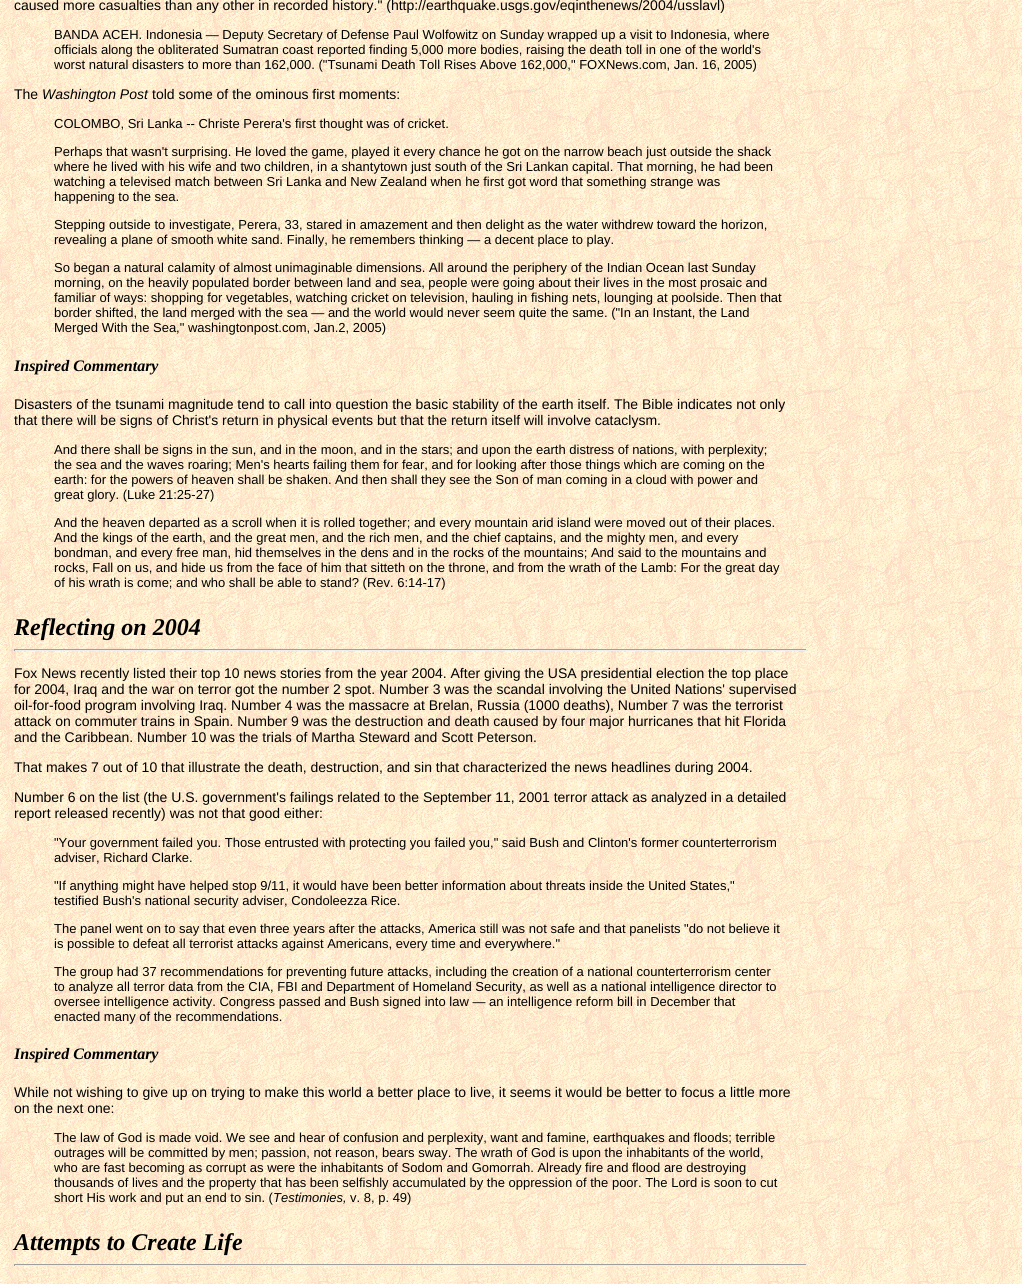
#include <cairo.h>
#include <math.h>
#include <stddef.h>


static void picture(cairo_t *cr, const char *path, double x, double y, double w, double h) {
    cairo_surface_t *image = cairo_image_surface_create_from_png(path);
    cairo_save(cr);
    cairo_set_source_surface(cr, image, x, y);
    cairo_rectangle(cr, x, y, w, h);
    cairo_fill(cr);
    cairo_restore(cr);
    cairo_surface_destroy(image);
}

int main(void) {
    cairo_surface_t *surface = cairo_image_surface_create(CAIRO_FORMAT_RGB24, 1022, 1284);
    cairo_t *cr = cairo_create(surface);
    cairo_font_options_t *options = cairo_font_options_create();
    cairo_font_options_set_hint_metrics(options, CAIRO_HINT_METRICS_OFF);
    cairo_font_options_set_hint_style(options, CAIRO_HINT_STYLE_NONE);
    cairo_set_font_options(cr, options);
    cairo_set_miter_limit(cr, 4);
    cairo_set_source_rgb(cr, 1, 1, 1);
    cairo_paint(cr);
    picture(cr, "img1.png", 0, 0, 1022, 1284);
    cairo_select_font_face(cr, "Liberation Sans", CAIRO_FONT_SLANT_NORMAL, CAIRO_FONT_WEIGHT_NORMAL);
    cairo_set_font_size(cr, 14);
    cairo_set_source_rgb(cr, 0, 0, 0);
    cairo_move_to(cr, 14, 10);
    cairo_show_text(cr, "caused more casualties than any other in recorded history.\" (http://earthquake.usgs.gov/eqinthenews/2004/usslavl)");
    cairo_set_font_size(cr, 13);
    cairo_move_to(cr, 54, 39);
    cairo_show_text(cr, "BANDA ACEH. Indonesia — Deputy Secretary of Defense Paul Wolfowitz on Sunday wrapped up a visit to Indonesia, where");
    cairo_move_to(cr, 54, 54);
    cairo_show_text(cr, "officials along the obliterated Sumatran coast reported finding 5,000 more bodies, raising the death toll in one of the world's");
    cairo_move_to(cr, 54, 69);
    cairo_show_text(cr, "worst natural disasters to more than 162,000. (\"Tsunami Death Toll Rises Above 162,000,\" FOXNews.com, Jan. 16, 2005)");
    cairo_set_font_size(cr, 14);
    cairo_move_to(cr, 14, 99);
    cairo_show_text(cr, "The");
    cairo_select_font_face(cr, "Liberation Sans", CAIRO_FONT_SLANT_ITALIC, CAIRO_FONT_WEIGHT_NORMAL);
    cairo_move_to(cr, 42, 99);
    cairo_show_text(cr, "Washington Post");
    cairo_select_font_face(cr, "Liberation Sans", CAIRO_FONT_SLANT_NORMAL, CAIRO_FONT_WEIGHT_NORMAL);
    cairo_move_to(cr, 152, 99);
    cairo_show_text(cr, "told some of the ominous first moments:");
    cairo_set_font_size(cr, 13);
    cairo_move_to(cr, 54, 128);
    cairo_show_text(cr, "COLOMBO, Sri Lanka -- Christe Perera's first thought was of cricket.");
    cairo_move_to(cr, 54, 156);
    cairo_show_text(cr, "Perhaps that wasn't surprising. He loved the game, played it every chance he got on the narrow beach just outside the shack");
    cairo_move_to(cr, 54, 171);
    cairo_show_text(cr, "where he lived with his wife and two children, in a shantytown just south of the Sri Lankan capital. That morning, he had been");
    cairo_move_to(cr, 54, 186);
    cairo_show_text(cr, "watching a televised match between Sri Lanka and New Zealand when he first got word that something strange was");
    cairo_move_to(cr, 54, 201);
    cairo_show_text(cr, "happening to the sea.");
    cairo_move_to(cr, 54, 229);
    cairo_show_text(cr, "Stepping outside to investigate, Perera, 33, stared in amazement and then delight as the water withdrew toward the horizon,");
    cairo_move_to(cr, 54, 244);
    cairo_show_text(cr, "revealing a plane of smooth white sand. Finally, he remembers thinking — a decent place to play.");
    cairo_move_to(cr, 54, 272);
    cairo_show_text(cr, "So began a natural calamity of almost unimaginable dimensions. All around the periphery of the Indian Ocean last Sunday");
    cairo_move_to(cr, 54, 287);
    cairo_show_text(cr, "morning, on the heavily populated border between land and sea, people were going about their lives in the most prosaic and");
    cairo_move_to(cr, 54, 302);
    cairo_show_text(cr, "familiar of ways: shopping for vegetables, watching cricket on television, hauling in fishing nets, lounging at poolside. Then that");
    cairo_move_to(cr, 54, 317);
    cairo_show_text(cr, "border shifted, the land merged with the sea — and the world would never seem quite the same. (\"In an Instant, the Land");
    cairo_move_to(cr, 54, 332);
    cairo_show_text(cr, "Merged With the Sea,\" washingtonpost.com, Jan.2, 2005)");
    cairo_select_font_face(cr, "Liberation Serif", CAIRO_FONT_SLANT_ITALIC, CAIRO_FONT_WEIGHT_BOLD);
    cairo_set_font_size(cr, 16);
    cairo_move_to(cr, 14, 371);
    cairo_show_text(cr, "Inspired Commentary");
    cairo_select_font_face(cr, "Liberation Sans", CAIRO_FONT_SLANT_NORMAL, CAIRO_FONT_WEIGHT_NORMAL);
    cairo_set_font_size(cr, 14);
    cairo_move_to(cr, 14, 409);
    cairo_show_text(cr, "Disasters of the tsunami magnitude tend to call into question the basic stability of the earth itself. The Bible indicates not only");
    cairo_move_to(cr, 14, 425);
    cairo_show_text(cr, "that there will be signs of Christ's return in physical events but that the return itself will involve cataclysm.");
    cairo_set_font_size(cr, 13);
    cairo_move_to(cr, 54, 454);
    cairo_show_text(cr, "And there shall be signs in the sun, and in the moon, and in the stars; and upon the earth distress of nations, with perplexity;");
    cairo_move_to(cr, 54, 469);
    cairo_show_text(cr, "the sea and the waves roaring; Men's hearts failing them for fear, and for looking after those things which are coming on the");
    cairo_move_to(cr, 54, 484);
    cairo_show_text(cr, "earth: for the powers of heaven shall be shaken. And then shall they see the Son of man coming in a cloud with power and");
    cairo_move_to(cr, 54, 499);
    cairo_show_text(cr, "great glory. (Luke 21:25-27)");
    cairo_move_to(cr, 54, 527);
    cairo_show_text(cr, "And the heaven departed as a scroll when it is rolled together; and every mountain arid island were moved out of their places.");
    cairo_move_to(cr, 54, 542);
    cairo_show_text(cr, "And the kings of the earth, and the great men, and the rich men, and the chief captains, and the mighty men, and every");
    cairo_move_to(cr, 54, 557);
    cairo_show_text(cr, "bondman, and every free man, hid themselves in the dens and in the rocks of the mountains; And said to the mountains and");
    cairo_move_to(cr, 54, 572);
    cairo_show_text(cr, "rocks, Fall on us, and hide us from the face of him that sitteth on the throne, and from the wrath of the Lamb: For the great day");
    cairo_move_to(cr, 54, 587);
    cairo_show_text(cr, "of his wrath is come; and who shall be able to stand? (Rev. 6:14-17)");
    cairo_select_font_face(cr, "Liberation Serif", CAIRO_FONT_SLANT_ITALIC, CAIRO_FONT_WEIGHT_BOLD);
    cairo_set_font_size(cr, 24);
    cairo_move_to(cr, 14, 635);
    cairo_show_text(cr, "Reflecting on 2004");
    cairo_set_source_rgb(cr, 0.624, 0.624, 0.624);
    cairo_rectangle(cr, 14, 649, 793, 1);
    cairo_fill(cr);
    cairo_set_source_rgb(cr, 0.933, 0.933, 0.933);
    cairo_rectangle(cr, 806, 649, 1, 2);
    cairo_fill(cr);
    cairo_rectangle(cr, 14, 650, 793, 1);
    cairo_fill(cr);
    cairo_set_source_rgb(cr, 0.624, 0.624, 0.624);
    cairo_rectangle(cr, 14, 649, 1, 2);
    cairo_fill(cr);
    cairo_select_font_face(cr, "Liberation Sans", CAIRO_FONT_SLANT_NORMAL, CAIRO_FONT_WEIGHT_NORMAL);
    cairo_set_font_size(cr, 14);
    cairo_set_source_rgb(cr, 0, 0, 0);
    cairo_move_to(cr, 14, 678);
    cairo_show_text(cr, "Fox News recently listed their top 10 news stories from the year 2004. After giving the USA presidential election the top place");
    cairo_move_to(cr, 14, 694);
    cairo_show_text(cr, "for 2004, Iraq and the war on terror got the number 2 spot. Number 3 was the scandal involving the United Nations' supervised");
    cairo_move_to(cr, 14, 710);
    cairo_show_text(cr, "oil-for-food program involving Iraq. Number 4 was the massacre at Brelan, Russia (1000 deaths), Number 7 was the terrorist");
    cairo_move_to(cr, 14, 726);
    cairo_show_text(cr, "attack on commuter trains in Spain. Number 9 was the destruction and death caused by four major hurricanes that hit Florida");
    cairo_move_to(cr, 14, 742);
    cairo_show_text(cr, "and the Caribbean. Number 10 was the trials of Martha Steward and Scott Peterson.");
    cairo_move_to(cr, 14, 772);
    cairo_show_text(cr, "That makes 7 out of 10 that illustrate the death, destruction, and sin that characterized the news headlines during 2004.");
    cairo_move_to(cr, 14, 802);
    cairo_show_text(cr, "Number 6 on the list (the U.S. government's failings related to the September 11, 2001 terror attack as analyzed in a detailed");
    cairo_move_to(cr, 14, 818);
    cairo_show_text(cr, "report released recently) was not that good either:");
    cairo_set_font_size(cr, 13);
    cairo_move_to(cr, 54, 847);
    cairo_show_text(cr, "\"Your government failed you. Those entrusted with protecting you failed you,\" said Bush and Clinton's former counterterrorism");
    cairo_move_to(cr, 54, 862);
    cairo_show_text(cr, "adviser, Richard Clarke.");
    cairo_move_to(cr, 54, 890);
    cairo_show_text(cr, "\"If anything might have helped stop 9/11, it would have been better information about threats inside the United States,\"");
    cairo_move_to(cr, 54, 905);
    cairo_show_text(cr, "testified Bush's national security adviser, Condoleezza Rice.");
    cairo_move_to(cr, 54, 933);
    cairo_show_text(cr, "The panel went on to say that even three years after the attacks, America still was not safe and that panelists \"do not believe it");
    cairo_move_to(cr, 54, 948);
    cairo_show_text(cr, "is possible to defeat all terrorist attacks against Americans, every time and everywhere.\"");
    cairo_move_to(cr, 54, 976);
    cairo_show_text(cr, "The group had 37 recommendations for preventing future attacks, including the creation of a national counterterrorism center");
    cairo_move_to(cr, 54, 991);
    cairo_show_text(cr, "to analyze all terror data from the CIA, FBI and Department of Homeland Security, as well as a national intelligence director to");
    cairo_move_to(cr, 54, 1006);
    cairo_show_text(cr, "oversee intelligence activity. Congress passed and Bush signed into law — an intelligence reform bill in December that");
    cairo_move_to(cr, 54, 1021);
    cairo_show_text(cr, "enacted many of the recommendations.");
    cairo_select_font_face(cr, "Liberation Serif", CAIRO_FONT_SLANT_ITALIC, CAIRO_FONT_WEIGHT_BOLD);
    cairo_set_font_size(cr, 16);
    cairo_move_to(cr, 14, 1059);
    cairo_show_text(cr, "Inspired Commentary");
    cairo_select_font_face(cr, "Liberation Sans", CAIRO_FONT_SLANT_NORMAL, CAIRO_FONT_WEIGHT_NORMAL);
    cairo_set_font_size(cr, 14);
    cairo_move_to(cr, 14, 1097);
    cairo_show_text(cr, "While not wishing to give up on trying to make this world a better place to live, it seems it would be better to focus a little more");
    cairo_move_to(cr, 14, 1113);
    cairo_show_text(cr, "on the next one:");
    cairo_set_font_size(cr, 13);
    cairo_move_to(cr, 54, 1142);
    cairo_show_text(cr, "The law of God is made void. We see and hear of confusion and perplexity, want and famine, earthquakes and floods; terrible");
    cairo_move_to(cr, 54, 1157);
    cairo_show_text(cr, "outrages will be committed by men; passion, not reason, bears sway. The wrath of God is upon the inhabitants of the world,");
    cairo_move_to(cr, 54, 1172);
    cairo_show_text(cr, "who are fast becoming as corrupt as were the inhabitants of Sodom and Gomorrah. Already fire and flood are destroying");
    cairo_move_to(cr, 54, 1187);
    cairo_show_text(cr, "thousands of lives and the property that has been selfishly accumulated by the oppression of the poor. The Lord is soon to cut");
    cairo_move_to(cr, 54, 1202);
    cairo_show_text(cr, "short His work and put an end to sin. (");
    cairo_select_font_face(cr, "Liberation Sans", CAIRO_FONT_SLANT_ITALIC, CAIRO_FONT_WEIGHT_NORMAL);
    cairo_move_to(cr, 273, 1202);
    cairo_show_text(cr, "Testimonies,");
    cairo_select_font_face(cr, "Liberation Sans", CAIRO_FONT_SLANT_NORMAL, CAIRO_FONT_WEIGHT_NORMAL);
    cairo_move_to(cr, 350, 1202);
    cairo_show_text(cr, "v. 8, p. 49)");
    cairo_select_font_face(cr, "Liberation Serif", CAIRO_FONT_SLANT_ITALIC, CAIRO_FONT_WEIGHT_BOLD);
    cairo_set_font_size(cr, 24);
    cairo_move_to(cr, 14, 1250);
    cairo_show_text(cr, "Attempts to Create Life");
    cairo_set_source_rgb(cr, 0.624, 0.624, 0.624);
    cairo_rectangle(cr, 14, 1264, 793, 1);
    cairo_fill(cr);
    cairo_set_source_rgb(cr, 0.933, 0.933, 0.933);
    cairo_rectangle(cr, 806, 1264, 1, 2);
    cairo_fill(cr);
    cairo_rectangle(cr, 14, 1265, 793, 1);
    cairo_fill(cr);
    cairo_set_source_rgb(cr, 0.624, 0.624, 0.624);
    cairo_rectangle(cr, 14, 1264, 1, 2);
    cairo_fill(cr);
    cairo_surface_write_to_png(surface, "page.png");
    cairo_font_options_destroy(options);
    cairo_destroy(cr);
    cairo_surface_destroy(surface);
    return 0;
}
